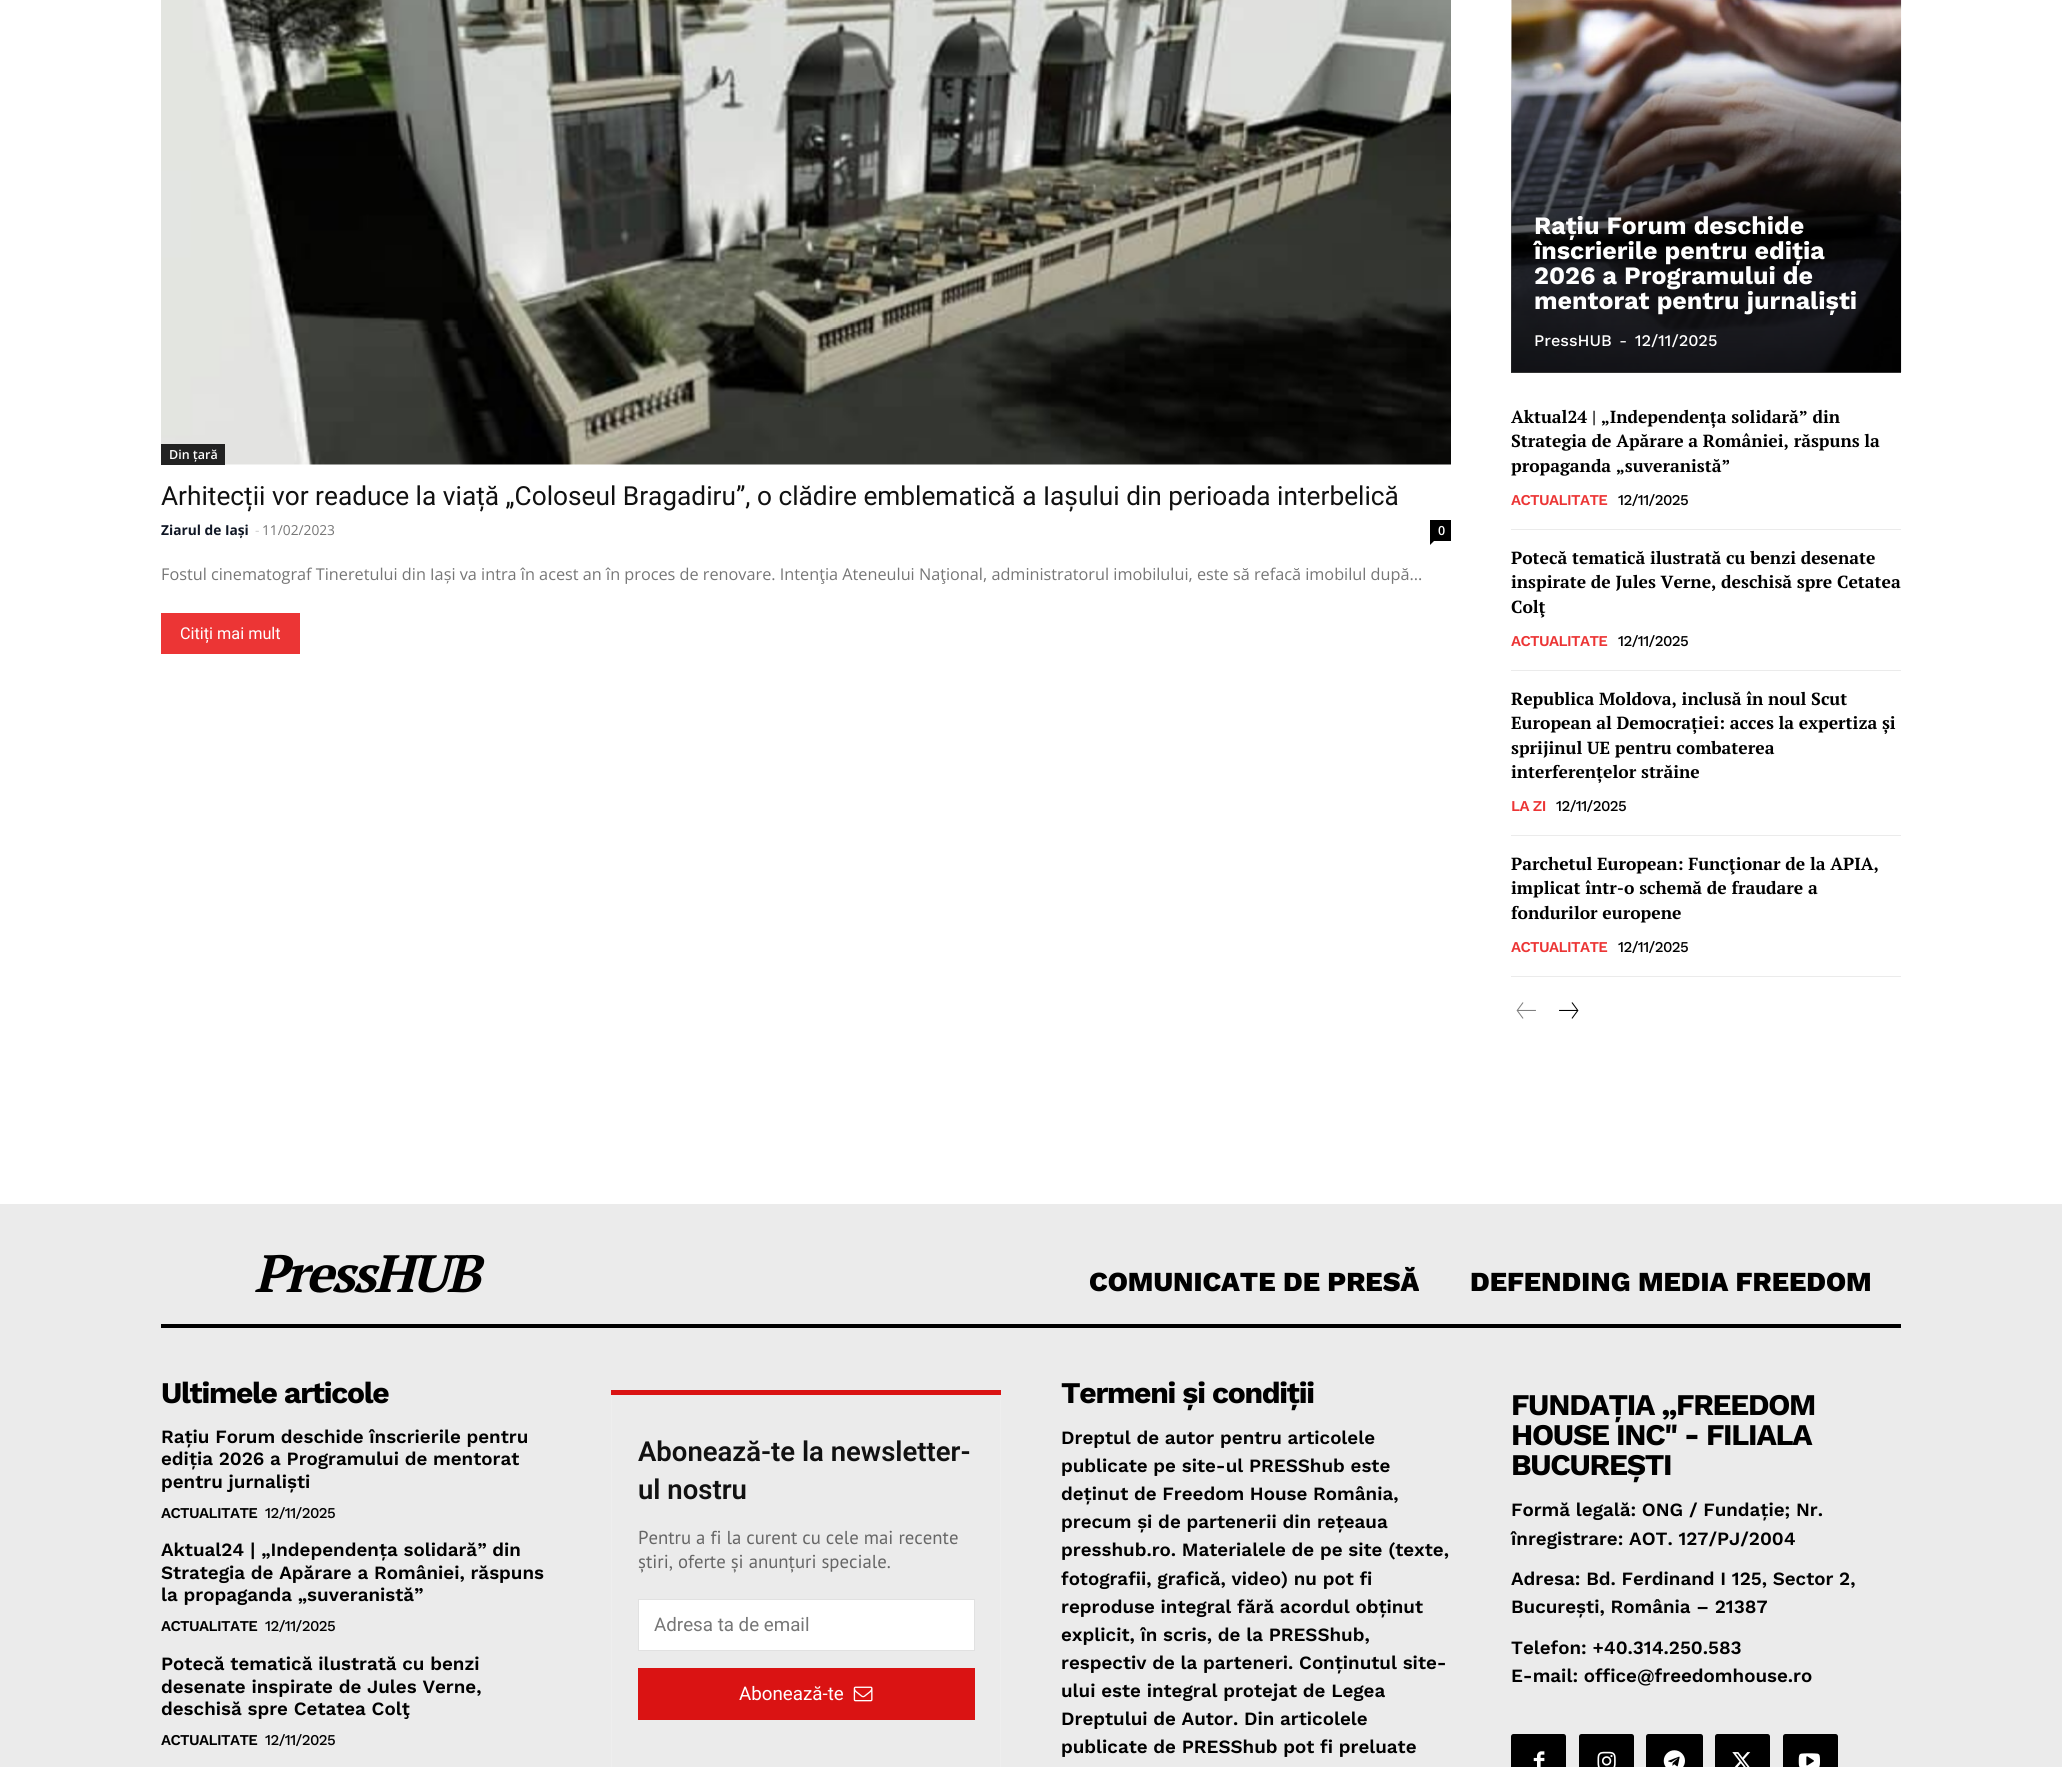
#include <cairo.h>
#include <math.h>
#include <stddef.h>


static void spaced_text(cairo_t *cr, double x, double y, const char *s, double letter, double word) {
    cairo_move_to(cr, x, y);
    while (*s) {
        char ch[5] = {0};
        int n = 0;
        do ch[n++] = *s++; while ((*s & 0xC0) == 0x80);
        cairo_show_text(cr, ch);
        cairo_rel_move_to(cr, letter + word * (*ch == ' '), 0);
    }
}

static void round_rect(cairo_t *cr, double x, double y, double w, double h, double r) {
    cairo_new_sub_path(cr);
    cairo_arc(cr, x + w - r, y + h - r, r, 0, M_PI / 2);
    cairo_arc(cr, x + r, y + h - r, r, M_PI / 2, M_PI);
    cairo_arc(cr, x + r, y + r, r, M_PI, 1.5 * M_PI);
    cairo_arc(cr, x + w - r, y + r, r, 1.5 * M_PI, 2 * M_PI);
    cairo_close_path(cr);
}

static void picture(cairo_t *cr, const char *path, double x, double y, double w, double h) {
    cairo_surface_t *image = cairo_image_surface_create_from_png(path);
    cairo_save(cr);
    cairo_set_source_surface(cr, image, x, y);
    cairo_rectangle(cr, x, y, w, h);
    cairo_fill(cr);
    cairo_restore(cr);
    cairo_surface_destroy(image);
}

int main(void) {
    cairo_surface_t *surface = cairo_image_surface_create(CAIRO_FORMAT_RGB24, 2062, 1767);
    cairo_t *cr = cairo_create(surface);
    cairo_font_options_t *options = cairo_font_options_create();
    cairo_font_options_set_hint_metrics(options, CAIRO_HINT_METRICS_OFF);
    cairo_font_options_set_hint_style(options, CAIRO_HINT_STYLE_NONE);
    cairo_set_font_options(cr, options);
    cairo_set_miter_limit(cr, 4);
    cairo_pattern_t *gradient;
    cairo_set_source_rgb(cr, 1, 1, 1);
    cairo_paint(cr);
    picture(cr, "img1.png", 161, 0, 1290, 465);
    cairo_set_source_rgb(cr, 0.133, 0.133, 0.133);
    cairo_rectangle(cr, 161, 444, 64, 21);
    cairo_fill(cr);
    cairo_select_font_face(cr, "Open Sans SemiBold", CAIRO_FONT_SLANT_NORMAL, CAIRO_FONT_WEIGHT_NORMAL);
    cairo_set_font_size(cr, 12.5);
    cairo_set_source_rgb(cr, 1, 1, 1);
    cairo_move_to(cr, 169, 459);
    cairo_show_text(cr, "Din țară");
    cairo_select_font_face(cr, "Roboto", CAIRO_FONT_SLANT_NORMAL, CAIRO_FONT_WEIGHT_NORMAL);
    cairo_set_font_size(cr, 26.25);
    cairo_set_source_rgb(cr, 0.067, 0.067, 0.067);
    cairo_move_to(cr, 161, 505);
    cairo_show_text(cr, "Arhitecții vor readuce la viață „Coloseul Bragadiru”, o clădire emblematică a Iașului din perioada interbelică");
    cairo_select_font_face(cr, "Open Sans", CAIRO_FONT_SLANT_NORMAL, CAIRO_FONT_WEIGHT_BOLD);
    cairo_set_font_size(cr, 13.75);
    cairo_set_source_rgb(cr, 0.063, 0.09, 0.145);
    cairo_move_to(cr, 161, 535);
    cairo_show_text(cr, "Ziarul de Iași");
    cairo_select_font_face(cr, "Open Sans", CAIRO_FONT_SLANT_NORMAL, CAIRO_FONT_WEIGHT_NORMAL);
    cairo_set_source_rgb(cr, 0.8, 0.8, 0.8);
    cairo_move_to(cr, 255, 535);
    cairo_show_text(cr, "-");
    cairo_set_source_rgb(cr, 0.463, 0.463, 0.463);
    cairo_move_to(cr, 262, 535);
    cairo_show_text(cr, "11/02/2023");
    cairo_set_source_rgb(cr, 0, 0, 0);
    cairo_rectangle(cr, 1430, 520, 21, 21);
    cairo_fill(cr);
    cairo_select_font_face(cr, "Open Sans SemiBold", CAIRO_FONT_SLANT_NORMAL, CAIRO_FONT_WEIGHT_NORMAL);
    cairo_set_font_size(cr, 12.5);
    cairo_set_source_rgb(cr, 1, 1, 1);
    cairo_move_to(cr, 1438, 535);
    cairo_show_text(cr, "0");
    cairo_set_source_rgb(cr, 0, 0, 0);
    cairo_new_path(cr);
    cairo_move_to(cr, 1430, 541);
    cairo_line_to(cr, 1434, 541);
    cairo_line_to(cr, 1430, 545);
    cairo_close_path(cr);
    cairo_fill(cr);
    cairo_select_font_face(cr, "Open Sans", CAIRO_FONT_SLANT_NORMAL, CAIRO_FONT_WEIGHT_NORMAL);
    cairo_set_font_size(cr, 16.25);
    cairo_set_source_rgb(cr, 0.463, 0.463, 0.463);
    cairo_move_to(cr, 161, 580);
    cairo_show_text(cr, "Fostul cinematograf Tineretului din Iași va intra în acest an în proces de renovare. Intenţia Ateneului Naţional, administratorul imobilului, este să refacă imobilul după...");
    cairo_set_source_rgb(cr, 0.925, 0.208, 0.208);
    cairo_rectangle(cr, 161, 613, 139, 41);
    cairo_fill(cr);
    cairo_select_font_face(cr, "Roboto", CAIRO_FONT_SLANT_NORMAL, CAIRO_FONT_WEIGHT_NORMAL);
    cairo_set_source_rgb(cr, 1, 1, 1);
    cairo_move_to(cr, 180, 639);
    cairo_show_text(cr, "Citiți mai mult");
    picture(cr, "img2.png", 1511, 0, 391, 372);
    gradient = cairo_pattern_create_linear(1706, 373, 1706, -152);
    cairo_pattern_add_color_stop_rgba(gradient, 0, 0, 0, 0, 0.8);
    cairo_pattern_add_color_stop_rgba(gradient, 0.42, 0, 0, 0, 0.5);
    cairo_pattern_add_color_stop_rgba(gradient, 0.61, 0, 0, 0, 0);
    cairo_pattern_add_color_stop_rgba(gradient, 1, 0, 0, 0, 0);
    cairo_set_source(cr, gradient);
    cairo_pattern_destroy(gradient);
    cairo_rectangle(cr, 1511, 57, 390, 316);
    cairo_fill(cr);
    cairo_select_font_face(cr, "Work Sans", CAIRO_FONT_SLANT_NORMAL, CAIRO_FONT_WEIGHT_BOLD);
    cairo_set_font_size(cr, 25);
    cairo_set_source_rgb(cr, 1, 1, 1);
    cairo_move_to(cr, 1534, 234);
    cairo_show_text(cr, "Rațiu Forum deschide");
    cairo_move_to(cr, 1534, 259);
    cairo_show_text(cr, "înscrierile pentru ediția");
    cairo_move_to(cr, 1534, 284);
    cairo_show_text(cr, "2026 a Programului de");
    cairo_move_to(cr, 1534, 309);
    cairo_show_text(cr, "mentorat pentru jurnaliști");
    cairo_select_font_face(cr, "Work Sans Medium", CAIRO_FONT_SLANT_NORMAL, CAIRO_FONT_WEIGHT_NORMAL);
    cairo_set_font_size(cr, 16.25);
    cairo_move_to(cr, 1534, 346);
    cairo_show_text(cr, "PressHUB");
    cairo_select_font_face(cr, "Work Sans", CAIRO_FONT_SLANT_NORMAL, CAIRO_FONT_WEIGHT_NORMAL);
    cairo_move_to(cr, 1619, 346);
    cairo_show_text(cr, "-");
    cairo_select_font_face(cr, "Work Sans Medium", CAIRO_FONT_SLANT_NORMAL, CAIRO_FONT_WEIGHT_NORMAL);
    cairo_move_to(cr, 1635, 346);
    cairo_show_text(cr, "12/11/2025");
    cairo_set_source_rgb(cr, 0.918, 0.918, 0.918);
    cairo_rectangle(cr, 1511, 529, 390, 1);
    cairo_fill(cr);
    cairo_select_font_face(cr, "PT Serif", CAIRO_FONT_SLANT_NORMAL, CAIRO_FONT_WEIGHT_BOLD);
    cairo_set_font_size(cr, 17.5);
    cairo_set_source_rgb(cr, 0, 0, 0);
    cairo_move_to(cr, 1511, 423);
    cairo_show_text(cr, "Aktual24 | „Independența solidară” din");
    cairo_move_to(cr, 1511, 447);
    cairo_show_text(cr, "Strategia de Apărare a României, răspuns la");
    cairo_move_to(cr, 1511, 472);
    cairo_show_text(cr, "propaganda „suveranistă”");
    cairo_select_font_face(cr, "Work Sans SemiBold", CAIRO_FONT_SLANT_NORMAL, CAIRO_FONT_WEIGHT_NORMAL);
    cairo_set_font_size(cr, 15);
    cairo_set_source_rgb(cr, 0.925, 0.208, 0.208);
    spaced_text(cr, 1511, 505, "ACTUALITATE", -0.6, 0);
    cairo_select_font_face(cr, "Work Sans Medium", CAIRO_FONT_SLANT_NORMAL, CAIRO_FONT_WEIGHT_NORMAL);
    cairo_set_source_rgb(cr, 0, 0, 0);
    spaced_text(cr, 1618, 505, "12/11/2025", -0.6, 0);
    cairo_set_source_rgb(cr, 0.918, 0.918, 0.918);
    cairo_rectangle(cr, 1511, 670, 390, 1);
    cairo_fill(cr);
    cairo_select_font_face(cr, "PT Serif", CAIRO_FONT_SLANT_NORMAL, CAIRO_FONT_WEIGHT_BOLD);
    cairo_set_font_size(cr, 17.5);
    cairo_set_source_rgb(cr, 0, 0, 0);
    cairo_move_to(cr, 1511, 564);
    cairo_show_text(cr, "Potecă tematică ilustrată cu benzi desenate");
    cairo_move_to(cr, 1511, 588);
    cairo_show_text(cr, "inspirate de Jules Verne, deschisă spre Cetatea");
    cairo_move_to(cr, 1511, 613);
    cairo_show_text(cr, "Colţ");
    cairo_select_font_face(cr, "Work Sans SemiBold", CAIRO_FONT_SLANT_NORMAL, CAIRO_FONT_WEIGHT_NORMAL);
    cairo_set_font_size(cr, 15);
    cairo_set_source_rgb(cr, 0.925, 0.208, 0.208);
    spaced_text(cr, 1511, 646, "ACTUALITATE", -0.6, 0);
    cairo_select_font_face(cr, "Work Sans Medium", CAIRO_FONT_SLANT_NORMAL, CAIRO_FONT_WEIGHT_NORMAL);
    cairo_set_source_rgb(cr, 0, 0, 0);
    spaced_text(cr, 1618, 646, "12/11/2025", -0.6, 0);
    cairo_set_source_rgb(cr, 0.918, 0.918, 0.918);
    cairo_rectangle(cr, 1511, 835, 390, 1);
    cairo_fill(cr);
    cairo_select_font_face(cr, "PT Serif", CAIRO_FONT_SLANT_NORMAL, CAIRO_FONT_WEIGHT_BOLD);
    cairo_set_font_size(cr, 17.5);
    cairo_set_source_rgb(cr, 0, 0, 0);
    cairo_move_to(cr, 1511, 705);
    cairo_show_text(cr, "Republica Moldova, inclusă în noul Scut");
    cairo_move_to(cr, 1511, 729);
    cairo_show_text(cr, "European al Democrației: acces la expertiza și");
    cairo_move_to(cr, 1511, 754);
    cairo_show_text(cr, "sprijinul UE pentru combaterea");
    cairo_move_to(cr, 1511, 778);
    cairo_show_text(cr, "interferențelor străine");
    cairo_select_font_face(cr, "Work Sans SemiBold", CAIRO_FONT_SLANT_NORMAL, CAIRO_FONT_WEIGHT_NORMAL);
    cairo_set_font_size(cr, 15);
    cairo_set_source_rgb(cr, 0.925, 0.208, 0.208);
    spaced_text(cr, 1511, 811, "LA ZI", -0.6, 0);
    cairo_select_font_face(cr, "Work Sans Medium", CAIRO_FONT_SLANT_NORMAL, CAIRO_FONT_WEIGHT_NORMAL);
    cairo_set_source_rgb(cr, 0, 0, 0);
    spaced_text(cr, 1556, 811, "12/11/2025", -0.6, 0);
    cairo_set_source_rgb(cr, 0.918, 0.918, 0.918);
    cairo_rectangle(cr, 1511, 976, 390, 1);
    cairo_fill(cr);
    cairo_select_font_face(cr, "PT Serif", CAIRO_FONT_SLANT_NORMAL, CAIRO_FONT_WEIGHT_BOLD);
    cairo_set_font_size(cr, 17.5);
    cairo_set_source_rgb(cr, 0, 0, 0);
    cairo_move_to(cr, 1511, 870);
    cairo_show_text(cr, "Parchetul European: Funcţionar de la APIA,");
    cairo_move_to(cr, 1511, 894);
    cairo_show_text(cr, "implicat într-o schemă de fraudare a");
    cairo_move_to(cr, 1511, 919);
    cairo_show_text(cr, "fondurilor europene");
    cairo_select_font_face(cr, "Work Sans SemiBold", CAIRO_FONT_SLANT_NORMAL, CAIRO_FONT_WEIGHT_NORMAL);
    cairo_set_font_size(cr, 15);
    cairo_set_source_rgb(cr, 0.925, 0.208, 0.208);
    spaced_text(cr, 1511, 952, "ACTUALITATE", -0.6, 0);
    cairo_select_font_face(cr, "Work Sans Medium", CAIRO_FONT_SLANT_NORMAL, CAIRO_FONT_WEIGHT_NORMAL);
    cairo_set_source_rgb(cr, 0, 0, 0);
    spaced_text(cr, 1618, 952, "12/11/2025", -0.6, 0);
    picture(cr, "img3.png", 1516, 1002, 20, 17);
    picture(cr, "img4.png", 1559, 1002, 20, 17);
    cairo_set_source_rgb(cr, 0.918, 0.918, 0.918);
    cairo_rectangle(cr, 0, 1204, 2062, 563);
    cairo_fill(cr);
    cairo_set_source_rgb(cr, 0, 0, 0);
    cairo_rectangle(cr, 161, 1324, 1740, 4);
    cairo_fill(cr);
    cairo_select_font_face(cr, "PT Serif", CAIRO_FONT_SLANT_ITALIC, CAIRO_FONT_WEIGHT_BOLD);
    cairo_set_font_size(cr, 52.5);
    spaced_text(cr, 254, 1292, "PressHUB", -2.5, 0);
    cairo_select_font_face(cr, "Work Sans ExtraBold", CAIRO_FONT_SLANT_NORMAL, CAIRO_FONT_WEIGHT_NORMAL);
    cairo_set_font_size(cr, 27.5);
    cairo_move_to(cr, 1089, 1291);
    cairo_show_text(cr, "COMUNICATE DE PRESĂ");
    cairo_move_to(cr, 1470, 1291);
    cairo_show_text(cr, "DEFENDING MEDIA FREEDOM");
    cairo_select_font_face(cr, "Work Sans", CAIRO_FONT_SLANT_NORMAL, CAIRO_FONT_WEIGHT_BOLD);
    cairo_set_font_size(cr, 30);
    spaced_text(cr, 161, 1403, "Ultimele articole", -1.25, 0);
    cairo_select_font_face(cr, "Work Sans SemiBold", CAIRO_FONT_SLANT_NORMAL, CAIRO_FONT_WEIGHT_NORMAL);
    cairo_set_font_size(cr, 18.75);
    cairo_move_to(cr, 161, 1443);
    cairo_show_text(cr, "Rațiu Forum deschide înscrierile pentru");
    cairo_move_to(cr, 161, 1465);
    cairo_show_text(cr, "ediția 2026 a Programului de mentorat");
    cairo_move_to(cr, 161, 1488);
    cairo_show_text(cr, "pentru jurnaliști");
    cairo_set_font_size(cr, 15);
    spaced_text(cr, 161, 1518, "ACTUALITATE", -0.6, 0);
    cairo_select_font_face(cr, "Work Sans Medium", CAIRO_FONT_SLANT_NORMAL, CAIRO_FONT_WEIGHT_NORMAL);
    spaced_text(cr, 265, 1518, "12/11/2025", -0.6, 0);
    cairo_select_font_face(cr, "Work Sans SemiBold", CAIRO_FONT_SLANT_NORMAL, CAIRO_FONT_WEIGHT_NORMAL);
    cairo_set_font_size(cr, 18.75);
    cairo_move_to(cr, 161, 1556);
    cairo_show_text(cr, "Aktual24 | „Independența solidară” din");
    cairo_move_to(cr, 161, 1579);
    cairo_show_text(cr, "Strategia de Apărare a României, răspuns");
    cairo_move_to(cr, 161, 1601);
    cairo_show_text(cr, "la propaganda „suveranistă”");
    cairo_set_font_size(cr, 15);
    spaced_text(cr, 161, 1631, "ACTUALITATE", -0.6, 0);
    cairo_select_font_face(cr, "Work Sans Medium", CAIRO_FONT_SLANT_NORMAL, CAIRO_FONT_WEIGHT_NORMAL);
    spaced_text(cr, 265, 1631, "12/11/2025", -0.6, 0);
    cairo_select_font_face(cr, "Work Sans SemiBold", CAIRO_FONT_SLANT_NORMAL, CAIRO_FONT_WEIGHT_NORMAL);
    cairo_set_font_size(cr, 18.75);
    cairo_move_to(cr, 161, 1670);
    cairo_show_text(cr, "Potecă tematică ilustrată cu benzi");
    cairo_move_to(cr, 161, 1693);
    cairo_show_text(cr, "desenate inspirate de Jules Verne,");
    cairo_move_to(cr, 161, 1715);
    cairo_show_text(cr, "deschisă spre Cetatea Colţ");
    cairo_set_font_size(cr, 15);
    spaced_text(cr, 161, 1745, "ACTUALITATE", -0.6, 0);
    cairo_select_font_face(cr, "Work Sans Medium", CAIRO_FONT_SLANT_NORMAL, CAIRO_FONT_WEIGHT_NORMAL);
    spaced_text(cr, 265, 1745, "12/11/2025", -0.6, 0);
    cairo_rectangle(cr, 611.5, 1390.5, 389, 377);
    cairo_set_source_rgb(cr, 0.933, 0.933, 0.933);
    cairo_set_line_width(cr, 1);
    cairo_stroke(cr);
    cairo_set_source_rgb(cr, 0.855, 0.078, 0.078);
    cairo_rectangle(cr, 611, 1390, 390, 5);
    cairo_fill(cr);
    cairo_select_font_face(cr, "Roboto SemiBold", CAIRO_FONT_SLANT_NORMAL, CAIRO_FONT_WEIGHT_NORMAL);
    cairo_set_font_size(cr, 27.5);
    cairo_set_source_rgb(cr, 0.067, 0.067, 0.067);
    cairo_move_to(cr, 638, 1461);
    cairo_show_text(cr, "Abonează-te la newsletter-");
    cairo_move_to(cr, 638, 1499);
    cairo_show_text(cr, "ul nostru");
    cairo_select_font_face(cr, "PT Sans", CAIRO_FONT_SLANT_NORMAL, CAIRO_FONT_WEIGHT_NORMAL);
    cairo_set_font_size(cr, 18.75);
    cairo_set_source_rgb(cr, 0.4, 0.4, 0.4);
    cairo_move_to(cr, 638, 1544);
    cairo_show_text(cr, "Pentru a fi la curent cu cele mai recente");
    cairo_move_to(cr, 638, 1568);
    cairo_show_text(cr, "știri, oferte și anunțuri speciale.");
    cairo_set_source_rgb(cr, 1, 1, 1);
    cairo_rectangle(cr, 638.5, 1599.5, 336, 51);
    cairo_fill_preserve(cr);
    cairo_set_source_rgb(cr, 0.882, 0.882, 0.882);
    cairo_stroke(cr);
    cairo_select_font_face(cr, "Roboto", CAIRO_FONT_SLANT_NORMAL, CAIRO_FONT_WEIGHT_NORMAL);
    cairo_set_source_rgb(cr, 0.463, 0.463, 0.463);
    cairo_move_to(cr, 654, 1631);
    cairo_show_text(cr, "Adresa ta de email");
    cairo_set_source_rgb(cr, 0.855, 0.078, 0.078);
    cairo_rectangle(cr, 638, 1668, 337, 52);
    cairo_fill(cr);
    cairo_set_source_rgb(cr, 1, 1, 1);
    cairo_move_to(cr, 739, 1700);
    cairo_show_text(cr, "Abonează-te");
    picture(cr, "img5.png", 853, 1686, 20, 16);
    cairo_select_font_face(cr, "Work Sans", CAIRO_FONT_SLANT_NORMAL, CAIRO_FONT_WEIGHT_BOLD);
    cairo_set_font_size(cr, 30);
    cairo_set_source_rgb(cr, 0, 0, 0);
    spaced_text(cr, 1061, 1403, "Termeni și condiții", -1.25, 0);
    cairo_select_font_face(cr, "Work Sans SemiBold", CAIRO_FONT_SLANT_NORMAL, CAIRO_FONT_WEIGHT_NORMAL);
    cairo_set_font_size(cr, 18.75);
    cairo_move_to(cr, 1061, 1444);
    cairo_show_text(cr, "Dreptul de autor pentru articolele");
    cairo_move_to(cr, 1061, 1472);
    cairo_show_text(cr, "publicate pe site-ul PRESShub este");
    cairo_move_to(cr, 1061, 1500);
    cairo_show_text(cr, "deținut de Freedom House România,");
    cairo_move_to(cr, 1061, 1528);
    cairo_show_text(cr, "precum și de partenerii din rețeaua");
    cairo_move_to(cr, 1061, 1556);
    cairo_show_text(cr, "presshub.ro. Materialele de pe site (texte,");
    cairo_move_to(cr, 1061, 1585);
    cairo_show_text(cr, "fotografii, grafică, video) nu pot fi");
    cairo_move_to(cr, 1061, 1613);
    cairo_show_text(cr, "reproduse integral fără acordul obținut");
    cairo_move_to(cr, 1061, 1641);
    cairo_show_text(cr, "explicit, în scris, de la PRESShub,");
    cairo_move_to(cr, 1061, 1669);
    cairo_show_text(cr, "respectiv de la parteneri. Conținutul site-");
    cairo_move_to(cr, 1061, 1697);
    cairo_show_text(cr, "ului este integral protejat de Legea");
    cairo_move_to(cr, 1061, 1725);
    cairo_show_text(cr, "Dreptului de Autor. Din articolele");
    cairo_move_to(cr, 1061, 1753);
    cairo_show_text(cr, "publicate de PRESShub pot fi preluate");
    cairo_select_font_face(cr, "Work Sans", CAIRO_FONT_SLANT_NORMAL, CAIRO_FONT_WEIGHT_BOLD);
    cairo_set_font_size(cr, 30);
    spaced_text(cr, 1511, 1415, "FUNDAȚIA „FREEDOM", -1.25, 0);
    spaced_text(cr, 1511, 1445, "HOUSE INC\" - FILIALA", -1.25, 0);
    spaced_text(cr, 1511, 1475, "BUCUREȘTI", -1.25, 0);
    cairo_select_font_face(cr, "Work Sans SemiBold", CAIRO_FONT_SLANT_NORMAL, CAIRO_FONT_WEIGHT_NORMAL);
    cairo_set_font_size(cr, 18.75);
    cairo_move_to(cr, 1511, 1516);
    cairo_show_text(cr, "Formă legală: ONG / Fundație; Nr.");
    cairo_move_to(cr, 1511, 1545);
    cairo_show_text(cr, "înregistrare: AOT. 127/PJ/2004");
    cairo_move_to(cr, 1511, 1585);
    cairo_show_text(cr, "Adresa: Bd. Ferdinand I 125, Sector 2,");
    cairo_move_to(cr, 1511, 1613);
    cairo_show_text(cr, "București, România – 21387");
    cairo_move_to(cr, 1511, 1654);
    cairo_show_text(cr, "Telefon: +40.314.250.583");
    cairo_move_to(cr, 1511, 1682);
    cairo_show_text(cr, "E-mail: office@freedomhouse.ro");
    round_rect(cr, 1511, 1734, 55, 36, 2.5);
    cairo_fill(cr);
    picture(cr, "img6.png", 1533, 1751, 12, 16);
    round_rect(cr, 1579, 1734, 55, 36, 2.5);
    cairo_fill(cr);
    picture(cr, "img7.png", 1597, 1751, 19, 16);
    round_rect(cr, 1646, 1734, 57, 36, 2.5);
    cairo_fill(cr);
    picture(cr, "img8.png", 1663, 1750, 22, 17);
    round_rect(cr, 1715, 1734, 55, 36, 2.5);
    cairo_fill(cr);
    picture(cr, "img9.png", 1732, 1752, 19, 15);
    round_rect(cr, 1783, 1734, 55, 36, 2.5);
    cairo_fill(cr);
    picture(cr, "img10.png", 1798, 1753, 22, 14);
    cairo_surface_write_to_png(surface, "page.png");
    cairo_font_options_destroy(options);
    cairo_destroy(cr);
    cairo_surface_destroy(surface);
    return 0;
}
